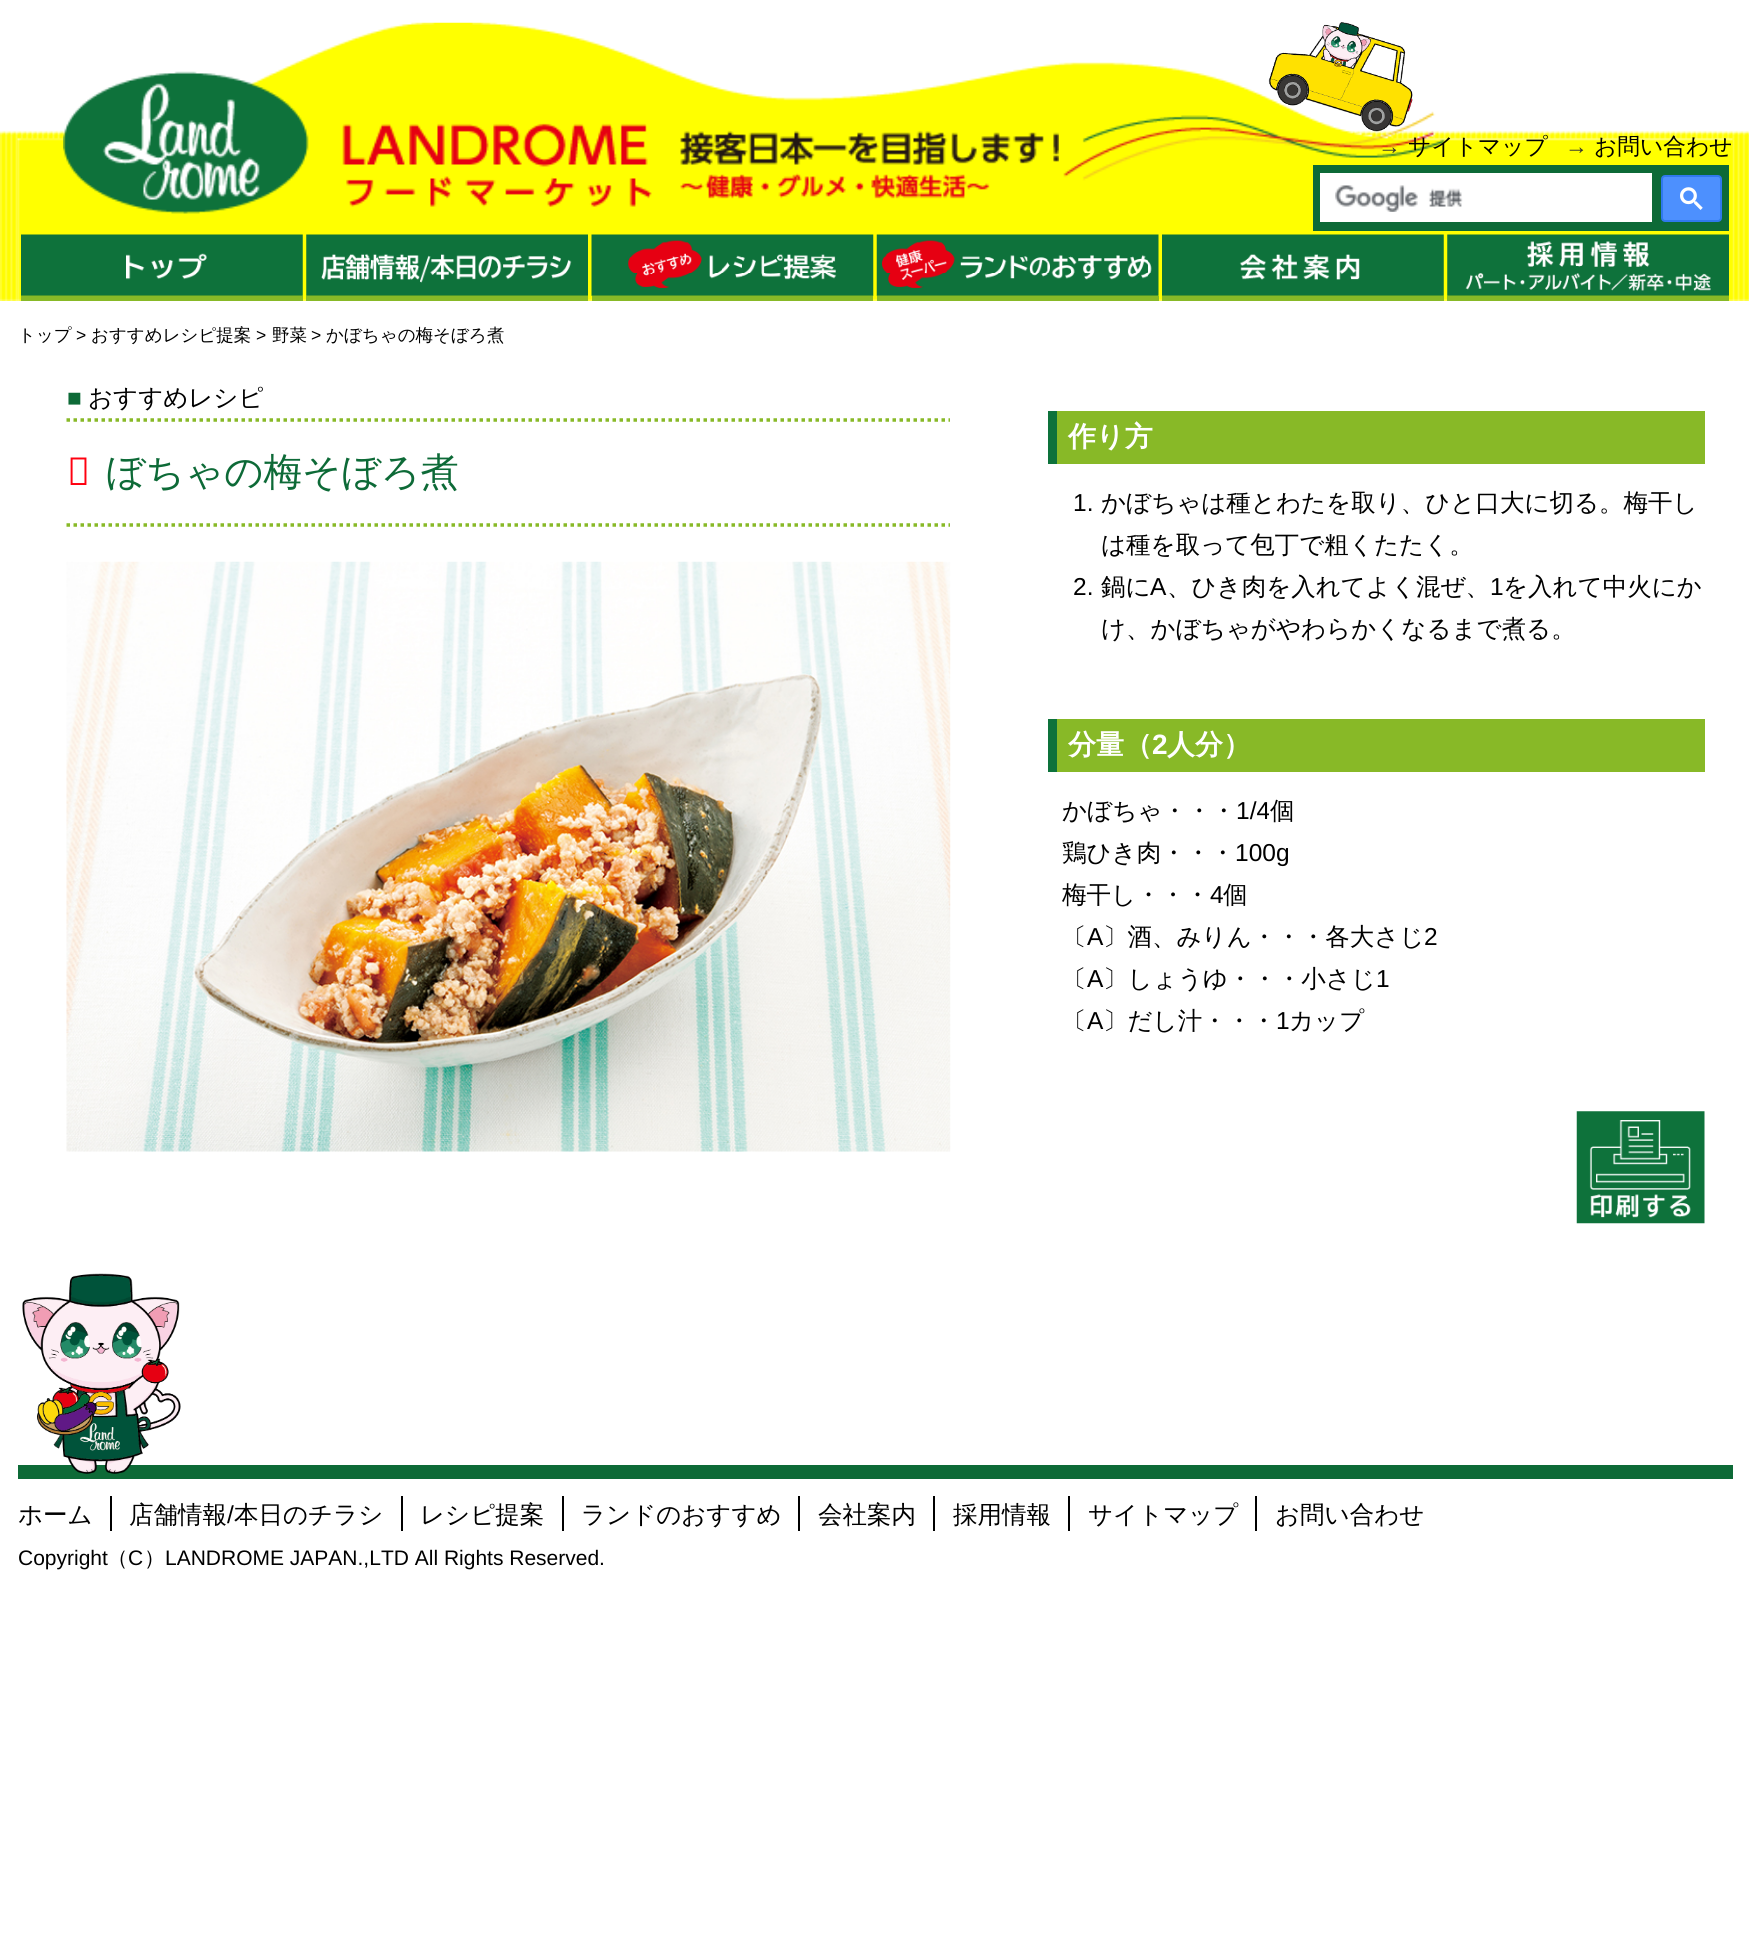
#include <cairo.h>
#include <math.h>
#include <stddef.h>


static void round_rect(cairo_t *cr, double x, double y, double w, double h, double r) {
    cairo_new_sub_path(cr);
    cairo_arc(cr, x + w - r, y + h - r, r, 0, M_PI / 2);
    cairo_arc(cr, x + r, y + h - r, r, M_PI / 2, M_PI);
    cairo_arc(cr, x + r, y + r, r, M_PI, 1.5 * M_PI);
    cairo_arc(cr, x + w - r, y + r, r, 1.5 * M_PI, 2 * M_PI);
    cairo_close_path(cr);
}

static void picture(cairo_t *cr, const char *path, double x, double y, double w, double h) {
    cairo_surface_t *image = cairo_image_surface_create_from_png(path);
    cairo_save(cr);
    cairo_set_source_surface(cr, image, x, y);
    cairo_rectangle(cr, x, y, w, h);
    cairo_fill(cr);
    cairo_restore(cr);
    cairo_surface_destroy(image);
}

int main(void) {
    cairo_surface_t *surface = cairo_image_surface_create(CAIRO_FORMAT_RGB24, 1749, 1955);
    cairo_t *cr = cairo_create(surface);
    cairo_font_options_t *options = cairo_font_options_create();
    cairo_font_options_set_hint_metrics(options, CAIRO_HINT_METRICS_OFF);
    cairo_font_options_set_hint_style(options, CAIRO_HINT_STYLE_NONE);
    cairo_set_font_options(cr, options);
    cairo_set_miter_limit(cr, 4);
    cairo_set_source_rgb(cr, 1, 1, 1);
    cairo_paint(cr);
    picture(cr, "img1.png", 0, 130, 1749, 171);
    picture(cr, "img2.png", 17, 22, 1716, 279);
    picture(cr, "img3.png", 63, 71, 996, 143);
    picture(cr, "img4.png", 1268, 22, 145, 110);
    cairo_select_font_face(cr, "Liberation Sans", CAIRO_FONT_SLANT_NORMAL, CAIRO_FONT_WEIGHT_BOLD);
    cairo_set_font_size(cr, 22.75);
    cairo_set_source_rgb(cr, 0.2, 0.2, 0.2);
    cairo_move_to(cr, 1378, 154);
    cairo_show_text(cr, "→");
    cairo_select_font_face(cr, "WenQuanYi Zen Hei Medium", CAIRO_FONT_SLANT_NORMAL, CAIRO_FONT_WEIGHT_NORMAL);
    cairo_set_source_rgb(cr, 0, 0, 0);
    cairo_move_to(cr, 1408, 154);
    cairo_show_text(cr, "サイトマップ");
    cairo_select_font_face(cr, "Liberation Sans", CAIRO_FONT_SLANT_NORMAL, CAIRO_FONT_WEIGHT_BOLD);
    cairo_set_source_rgb(cr, 0.2, 0.2, 0.2);
    cairo_move_to(cr, 1565, 154);
    cairo_show_text(cr, "→");
    cairo_select_font_face(cr, "WenQuanYi Zen Hei Medium", CAIRO_FONT_SLANT_NORMAL, CAIRO_FONT_WEIGHT_NORMAL);
    cairo_set_source_rgb(cr, 0, 0, 0);
    cairo_move_to(cr, 1594, 154);
    cairo_show_text(cr, "お問い合わせ");
    cairo_set_source_rgb(cr, 0.051, 0.416, 0.216);
    cairo_rectangle(cr, 1313, 165, 416, 66);
    cairo_fill(cr);
    cairo_set_source_rgb(cr, 1, 1, 1);
    cairo_rectangle(cr, 1320, 173, 332, 49);
    cairo_fill(cr);
    picture(cr, "img5.png", 1335, 185, 128, 27);
    cairo_set_source_rgb(cr, 0.302, 0.565, 0.996);
    round_rect(cr, 1662, 176, 59, 45, 3);
    cairo_fill_preserve(cr);
    cairo_set_source_rgb(cr, 0.188, 0.475, 0.929);
    cairo_stroke(cr);
    picture(cr, "img6.png", 1680, 187, 23, 23);
    picture(cr, "img7.png", 21, 234, 282, 62);
    cairo_set_source_rgb(cr, 0.533, 0.725, 0.153);
    cairo_rectangle(cr, 21, 296, 282, 5);
    cairo_fill(cr);
    picture(cr, "img8.png", 306, 234, 282, 62);
    cairo_rectangle(cr, 306, 296, 282, 5);
    cairo_fill(cr);
    picture(cr, "img9.png", 591, 234, 283, 62);
    cairo_rectangle(cr, 592, 296, 281, 5);
    cairo_fill(cr);
    picture(cr, "img10.png", 876, 234, 283, 62);
    cairo_rectangle(cr, 877, 296, 282, 5);
    cairo_fill(cr);
    picture(cr, "img11.png", 1162, 234, 282, 62);
    cairo_rectangle(cr, 1162, 296, 282, 5);
    cairo_fill(cr);
    picture(cr, "img12.png", 1447, 234, 282, 62);
    cairo_rectangle(cr, 1447, 296, 282, 5);
    cairo_fill(cr);
    cairo_set_font_size(cr, 17.5);
    cairo_set_source_rgb(cr, 0, 0, 0);
    cairo_move_to(cr, 18, 341);
    cairo_show_text(cr, "トップ");
    cairo_select_font_face(cr, "Liberation Sans", CAIRO_FONT_SLANT_NORMAL, CAIRO_FONT_WEIGHT_NORMAL);
    cairo_move_to(cr, 76, 341);
    cairo_show_text(cr, ">");
    cairo_select_font_face(cr, "WenQuanYi Zen Hei Medium", CAIRO_FONT_SLANT_NORMAL, CAIRO_FONT_WEIGHT_NORMAL);
    cairo_move_to(cr, 91, 341);
    cairo_show_text(cr, "おすすめレシピ提案");
    cairo_select_font_face(cr, "Liberation Sans", CAIRO_FONT_SLANT_NORMAL, CAIRO_FONT_WEIGHT_NORMAL);
    cairo_move_to(cr, 256, 341);
    cairo_show_text(cr, ">");
    cairo_select_font_face(cr, "WenQuanYi Zen Hei Medium", CAIRO_FONT_SLANT_NORMAL, CAIRO_FONT_WEIGHT_NORMAL);
    cairo_move_to(cr, 272, 341);
    cairo_show_text(cr, "野菜");
    cairo_select_font_face(cr, "Liberation Sans", CAIRO_FONT_SLANT_NORMAL, CAIRO_FONT_WEIGHT_NORMAL);
    cairo_move_to(cr, 311, 341);
    cairo_show_text(cr, ">");
    cairo_select_font_face(cr, "WenQuanYi Zen Hei Medium", CAIRO_FONT_SLANT_NORMAL, CAIRO_FONT_WEIGHT_NORMAL);
    cairo_move_to(cr, 326, 341);
    cairo_show_text(cr, "かぼちゃの梅そぼろ煮");
    cairo_select_font_face(cr, "Liberation Sans", CAIRO_FONT_SLANT_NORMAL, CAIRO_FONT_WEIGHT_NORMAL);
    cairo_set_font_size(cr, 24.5);
    cairo_set_source_rgb(cr, 0.051, 0.416, 0.216);
    cairo_move_to(cr, 67, 406);
    cairo_show_text(cr, "■");
    cairo_select_font_face(cr, "WenQuanYi Zen Hei Medium", CAIRO_FONT_SLANT_NORMAL, CAIRO_FONT_WEIGHT_NORMAL);
    cairo_set_source_rgb(cr, 0, 0, 0);
    cairo_move_to(cr, 88, 406);
    cairo_show_text(cr, "おすすめレシピ");
    cairo_new_path(cr);
    cairo_move_to(cr, 66.5, 420);
    cairo_line_to(cr, 950, 420);
    cairo_set_source_rgb(cr, 0.533, 0.725, 0.153);
    cairo_set_line_width(cr, 3.5);
    cairo_set_dash(cr, (double[]){3.5, 3.5}, 2, 0);
    cairo_stroke(cr);
    cairo_new_path(cr);
    cairo_move_to(cr, 66.5, 525);
    cairo_line_to(cr, 950, 525);
    cairo_stroke(cr);
    cairo_select_font_face(cr, "Noto Sans", CAIRO_FONT_SLANT_NORMAL, CAIRO_FONT_WEIGHT_NORMAL);
    cairo_set_font_size(cr, 38.5);
    cairo_set_source_rgb(cr, 1, 0, 0.059);
    cairo_move_to(cr, 67, 485);
    cairo_show_text(cr, "か");
    cairo_select_font_face(cr, "WenQuanYi Zen Hei Medium", CAIRO_FONT_SLANT_NORMAL, CAIRO_FONT_WEIGHT_NORMAL);
    cairo_set_source_rgb(cr, 0.051, 0.416, 0.216);
    cairo_move_to(cr, 106, 485);
    cairo_show_text(cr, "ぼちゃの梅そぼろ煮");
    picture(cr, "img13.png", 66, 561, 885, 591);
    cairo_set_source_rgb(cr, 0.533, 0.725, 0.153);
    cairo_rectangle(cr, 1057, 411, 648, 53);
    cairo_fill(cr);
    cairo_set_source_rgb(cr, 0.051, 0.447, 0.231);
    cairo_rectangle(cr, 1048, 411, 9, 53);
    cairo_fill(cr);
    cairo_select_font_face(cr, "WenQuanYi Zen Hei", CAIRO_FONT_SLANT_NORMAL, CAIRO_FONT_WEIGHT_BOLD);
    cairo_set_font_size(cr, 28);
    cairo_set_source_rgb(cr, 1, 1, 1);
    cairo_move_to(cr, 1068, 446);
    cairo_show_text(cr, "作り方");
    cairo_select_font_face(cr, "Liberation Sans", CAIRO_FONT_SLANT_NORMAL, CAIRO_FONT_WEIGHT_NORMAL);
    cairo_set_font_size(cr, 24.5);
    cairo_set_source_rgb(cr, 0, 0, 0);
    cairo_move_to(cr, 1073, 511);
    cairo_show_text(cr, "1.");
    cairo_select_font_face(cr, "WenQuanYi Zen Hei Medium", CAIRO_FONT_SLANT_NORMAL, CAIRO_FONT_WEIGHT_NORMAL);
    cairo_move_to(cr, 1101, 511);
    cairo_show_text(cr, "かぼちゃは種とわたを取り、ひと口大に切る。梅干し");
    cairo_move_to(cr, 1101, 553);
    cairo_show_text(cr, "は種を取って包丁で粗くたたく。");
    cairo_select_font_face(cr, "Liberation Sans", CAIRO_FONT_SLANT_NORMAL, CAIRO_FONT_WEIGHT_NORMAL);
    cairo_move_to(cr, 1073, 595);
    cairo_show_text(cr, "2.");
    cairo_select_font_face(cr, "WenQuanYi Zen Hei Medium", CAIRO_FONT_SLANT_NORMAL, CAIRO_FONT_WEIGHT_NORMAL);
    cairo_move_to(cr, 1101, 595);
    cairo_show_text(cr, "鍋に");
    cairo_select_font_face(cr, "Liberation Sans", CAIRO_FONT_SLANT_NORMAL, CAIRO_FONT_WEIGHT_NORMAL);
    cairo_move_to(cr, 1150, 595);
    cairo_show_text(cr, "A");
    cairo_select_font_face(cr, "WenQuanYi Zen Hei Medium", CAIRO_FONT_SLANT_NORMAL, CAIRO_FONT_WEIGHT_NORMAL);
    cairo_move_to(cr, 1167, 595);
    cairo_show_text(cr, "、ひき肉を入れてよく混ぜ、");
    cairo_select_font_face(cr, "Liberation Sans", CAIRO_FONT_SLANT_NORMAL, CAIRO_FONT_WEIGHT_NORMAL);
    cairo_move_to(cr, 1490, 595);
    cairo_show_text(cr, "1");
    cairo_select_font_face(cr, "WenQuanYi Zen Hei Medium", CAIRO_FONT_SLANT_NORMAL, CAIRO_FONT_WEIGHT_NORMAL);
    cairo_move_to(cr, 1503, 595);
    cairo_show_text(cr, "を入れて中火にか");
    cairo_move_to(cr, 1101, 637);
    cairo_show_text(cr, "け、かぼちゃがやわらかくなるまで煮る。");
    cairo_set_source_rgb(cr, 0.533, 0.725, 0.153);
    cairo_rectangle(cr, 1057, 719, 648, 53);
    cairo_fill(cr);
    cairo_set_source_rgb(cr, 0.051, 0.447, 0.231);
    cairo_rectangle(cr, 1048, 719, 9, 53);
    cairo_fill(cr);
    cairo_select_font_face(cr, "WenQuanYi Zen Hei", CAIRO_FONT_SLANT_NORMAL, CAIRO_FONT_WEIGHT_BOLD);
    cairo_set_font_size(cr, 28);
    cairo_set_source_rgb(cr, 1, 1, 1);
    cairo_move_to(cr, 1068, 754);
    cairo_show_text(cr, "分量（");
    cairo_select_font_face(cr, "Liberation Sans", CAIRO_FONT_SLANT_NORMAL, CAIRO_FONT_WEIGHT_BOLD);
    cairo_move_to(cr, 1152, 754);
    cairo_show_text(cr, "2");
    cairo_select_font_face(cr, "WenQuanYi Zen Hei", CAIRO_FONT_SLANT_NORMAL, CAIRO_FONT_WEIGHT_BOLD);
    cairo_move_to(cr, 1167, 754);
    cairo_show_text(cr, "人分）");
    cairo_select_font_face(cr, "WenQuanYi Zen Hei Medium", CAIRO_FONT_SLANT_NORMAL, CAIRO_FONT_WEIGHT_NORMAL);
    cairo_set_font_size(cr, 24.5);
    cairo_set_source_rgb(cr, 0, 0, 0);
    cairo_move_to(cr, 1062, 819);
    cairo_show_text(cr, "かぼちゃ・・・");
    cairo_select_font_face(cr, "Liberation Sans", CAIRO_FONT_SLANT_NORMAL, CAIRO_FONT_WEIGHT_NORMAL);
    cairo_move_to(cr, 1236, 819);
    cairo_show_text(cr, "1/4");
    cairo_select_font_face(cr, "WenQuanYi Zen Hei Medium", CAIRO_FONT_SLANT_NORMAL, CAIRO_FONT_WEIGHT_NORMAL);
    cairo_move_to(cr, 1270, 819);
    cairo_show_text(cr, "個");
    cairo_move_to(cr, 1062, 861);
    cairo_show_text(cr, "鶏ひき肉・・・");
    cairo_select_font_face(cr, "Liberation Sans", CAIRO_FONT_SLANT_NORMAL, CAIRO_FONT_WEIGHT_NORMAL);
    cairo_move_to(cr, 1235, 861);
    cairo_show_text(cr, "100g");
    cairo_select_font_face(cr, "WenQuanYi Zen Hei Medium", CAIRO_FONT_SLANT_NORMAL, CAIRO_FONT_WEIGHT_NORMAL);
    cairo_move_to(cr, 1062, 903);
    cairo_show_text(cr, "梅干し・・・");
    cairo_select_font_face(cr, "Liberation Sans", CAIRO_FONT_SLANT_NORMAL, CAIRO_FONT_WEIGHT_NORMAL);
    cairo_move_to(cr, 1210, 903);
    cairo_show_text(cr, "4");
    cairo_select_font_face(cr, "WenQuanYi Zen Hei Medium", CAIRO_FONT_SLANT_NORMAL, CAIRO_FONT_WEIGHT_NORMAL);
    cairo_move_to(cr, 1223, 903);
    cairo_show_text(cr, "個");
    cairo_move_to(cr, 1062, 945);
    cairo_show_text(cr, "〔");
    cairo_select_font_face(cr, "Liberation Sans", CAIRO_FONT_SLANT_NORMAL, CAIRO_FONT_WEIGHT_NORMAL);
    cairo_move_to(cr, 1087, 945);
    cairo_show_text(cr, "A");
    cairo_select_font_face(cr, "WenQuanYi Zen Hei Medium", CAIRO_FONT_SLANT_NORMAL, CAIRO_FONT_WEIGHT_NORMAL);
    cairo_move_to(cr, 1103, 945);
    cairo_show_text(cr, "〕酒、みりん・・・各大さじ");
    cairo_select_font_face(cr, "Liberation Sans", CAIRO_FONT_SLANT_NORMAL, CAIRO_FONT_WEIGHT_NORMAL);
    cairo_move_to(cr, 1424, 945);
    cairo_show_text(cr, "2");
    cairo_select_font_face(cr, "WenQuanYi Zen Hei Medium", CAIRO_FONT_SLANT_NORMAL, CAIRO_FONT_WEIGHT_NORMAL);
    cairo_move_to(cr, 1062, 987);
    cairo_show_text(cr, "〔");
    cairo_select_font_face(cr, "Liberation Sans", CAIRO_FONT_SLANT_NORMAL, CAIRO_FONT_WEIGHT_NORMAL);
    cairo_move_to(cr, 1087, 987);
    cairo_show_text(cr, "A");
    cairo_select_font_face(cr, "WenQuanYi Zen Hei Medium", CAIRO_FONT_SLANT_NORMAL, CAIRO_FONT_WEIGHT_NORMAL);
    cairo_move_to(cr, 1103, 987);
    cairo_show_text(cr, "〕しょうゆ・・・小さじ");
    cairo_select_font_face(cr, "Liberation Sans", CAIRO_FONT_SLANT_NORMAL, CAIRO_FONT_WEIGHT_NORMAL);
    cairo_move_to(cr, 1376, 987);
    cairo_show_text(cr, "1");
    cairo_select_font_face(cr, "WenQuanYi Zen Hei Medium", CAIRO_FONT_SLANT_NORMAL, CAIRO_FONT_WEIGHT_NORMAL);
    cairo_move_to(cr, 1062, 1029);
    cairo_show_text(cr, "〔");
    cairo_select_font_face(cr, "Liberation Sans", CAIRO_FONT_SLANT_NORMAL, CAIRO_FONT_WEIGHT_NORMAL);
    cairo_move_to(cr, 1087, 1029);
    cairo_show_text(cr, "A");
    cairo_select_font_face(cr, "WenQuanYi Zen Hei Medium", CAIRO_FONT_SLANT_NORMAL, CAIRO_FONT_WEIGHT_NORMAL);
    cairo_move_to(cr, 1103, 1029);
    cairo_show_text(cr, "〕だし汁・・・");
    cairo_select_font_face(cr, "Liberation Sans", CAIRO_FONT_SLANT_NORMAL, CAIRO_FONT_WEIGHT_NORMAL);
    cairo_move_to(cr, 1276, 1029);
    cairo_show_text(cr, "1");
    cairo_select_font_face(cr, "WenQuanYi Zen Hei Medium", CAIRO_FONT_SLANT_NORMAL, CAIRO_FONT_WEIGHT_NORMAL);
    cairo_move_to(cr, 1289, 1029);
    cairo_show_text(cr, "カップ");
    picture(cr, "img14.png", 1576, 1111, 129, 113);
    cairo_set_source_rgb(cr, 0.051, 0.416, 0.216);
    cairo_rectangle(cr, 18, 1465, 1715, 14);
    cairo_fill(cr);
    picture(cr, "img15.png", 22, 1273, 159, 201);
    cairo_set_source_rgb(cr, 0, 0, 0);
    cairo_move_to(cr, 18, 1523);
    cairo_show_text(cr, "ホーム");
    cairo_rectangle(cr, 110, 1496, 2, 35);
    cairo_fill(cr);
    cairo_move_to(cr, 129, 1523);
    cairo_show_text(cr, "店舗情報");
    cairo_select_font_face(cr, "Liberation Sans", CAIRO_FONT_SLANT_NORMAL, CAIRO_FONT_WEIGHT_NORMAL);
    cairo_move_to(cr, 227, 1523);
    cairo_show_text(cr, "/");
    cairo_select_font_face(cr, "WenQuanYi Zen Hei Medium", CAIRO_FONT_SLANT_NORMAL, CAIRO_FONT_WEIGHT_NORMAL);
    cairo_move_to(cr, 234, 1523);
    cairo_show_text(cr, "本日のチラシ");
    cairo_rectangle(cr, 401, 1496, 2, 35);
    cairo_fill(cr);
    cairo_move_to(cr, 420, 1523);
    cairo_show_text(cr, "レシピ提案");
    cairo_rectangle(cr, 562, 1496, 2, 35);
    cairo_fill(cr);
    cairo_move_to(cr, 581, 1523);
    cairo_show_text(cr, "ランドのおすすめ");
    cairo_rectangle(cr, 798, 1496, 2, 35);
    cairo_fill(cr);
    cairo_move_to(cr, 818, 1523);
    cairo_show_text(cr, "会社案内");
    cairo_rectangle(cr, 933, 1496, 2, 35);
    cairo_fill(cr);
    cairo_move_to(cr, 953, 1523);
    cairo_show_text(cr, "採用情報");
    cairo_rectangle(cr, 1068, 1496, 2, 35);
    cairo_fill(cr);
    cairo_move_to(cr, 1088, 1523);
    cairo_show_text(cr, "サイトマップ");
    cairo_rectangle(cr, 1255, 1496, 2, 35);
    cairo_fill(cr);
    cairo_move_to(cr, 1275, 1523);
    cairo_show_text(cr, "お問い合わせ");
    cairo_select_font_face(cr, "Liberation Sans", CAIRO_FONT_SLANT_NORMAL, CAIRO_FONT_WEIGHT_NORMAL);
    cairo_set_font_size(cr, 21);
    cairo_move_to(cr, 18, 1565);
    cairo_show_text(cr, "Copyright");
    cairo_select_font_face(cr, "WenQuanYi Zen Hei Medium", CAIRO_FONT_SLANT_NORMAL, CAIRO_FONT_WEIGHT_NORMAL);
    cairo_move_to(cr, 107, 1565);
    cairo_show_text(cr, "（");
    cairo_select_font_face(cr, "Liberation Sans", CAIRO_FONT_SLANT_NORMAL, CAIRO_FONT_WEIGHT_NORMAL);
    cairo_move_to(cr, 128, 1565);
    cairo_show_text(cr, "C");
    cairo_select_font_face(cr, "WenQuanYi Zen Hei Medium", CAIRO_FONT_SLANT_NORMAL, CAIRO_FONT_WEIGHT_NORMAL);
    cairo_move_to(cr, 144, 1565);
    cairo_show_text(cr, "）");
    cairo_select_font_face(cr, "Liberation Sans", CAIRO_FONT_SLANT_NORMAL, CAIRO_FONT_WEIGHT_NORMAL);
    cairo_move_to(cr, 165, 1565);
    cairo_show_text(cr, "LANDROME JAPAN.,LTD All Rights Reserved.");
    cairo_surface_write_to_png(surface, "page.png");
    cairo_font_options_destroy(options);
    cairo_destroy(cr);
    cairo_surface_destroy(surface);
    return 0;
}
